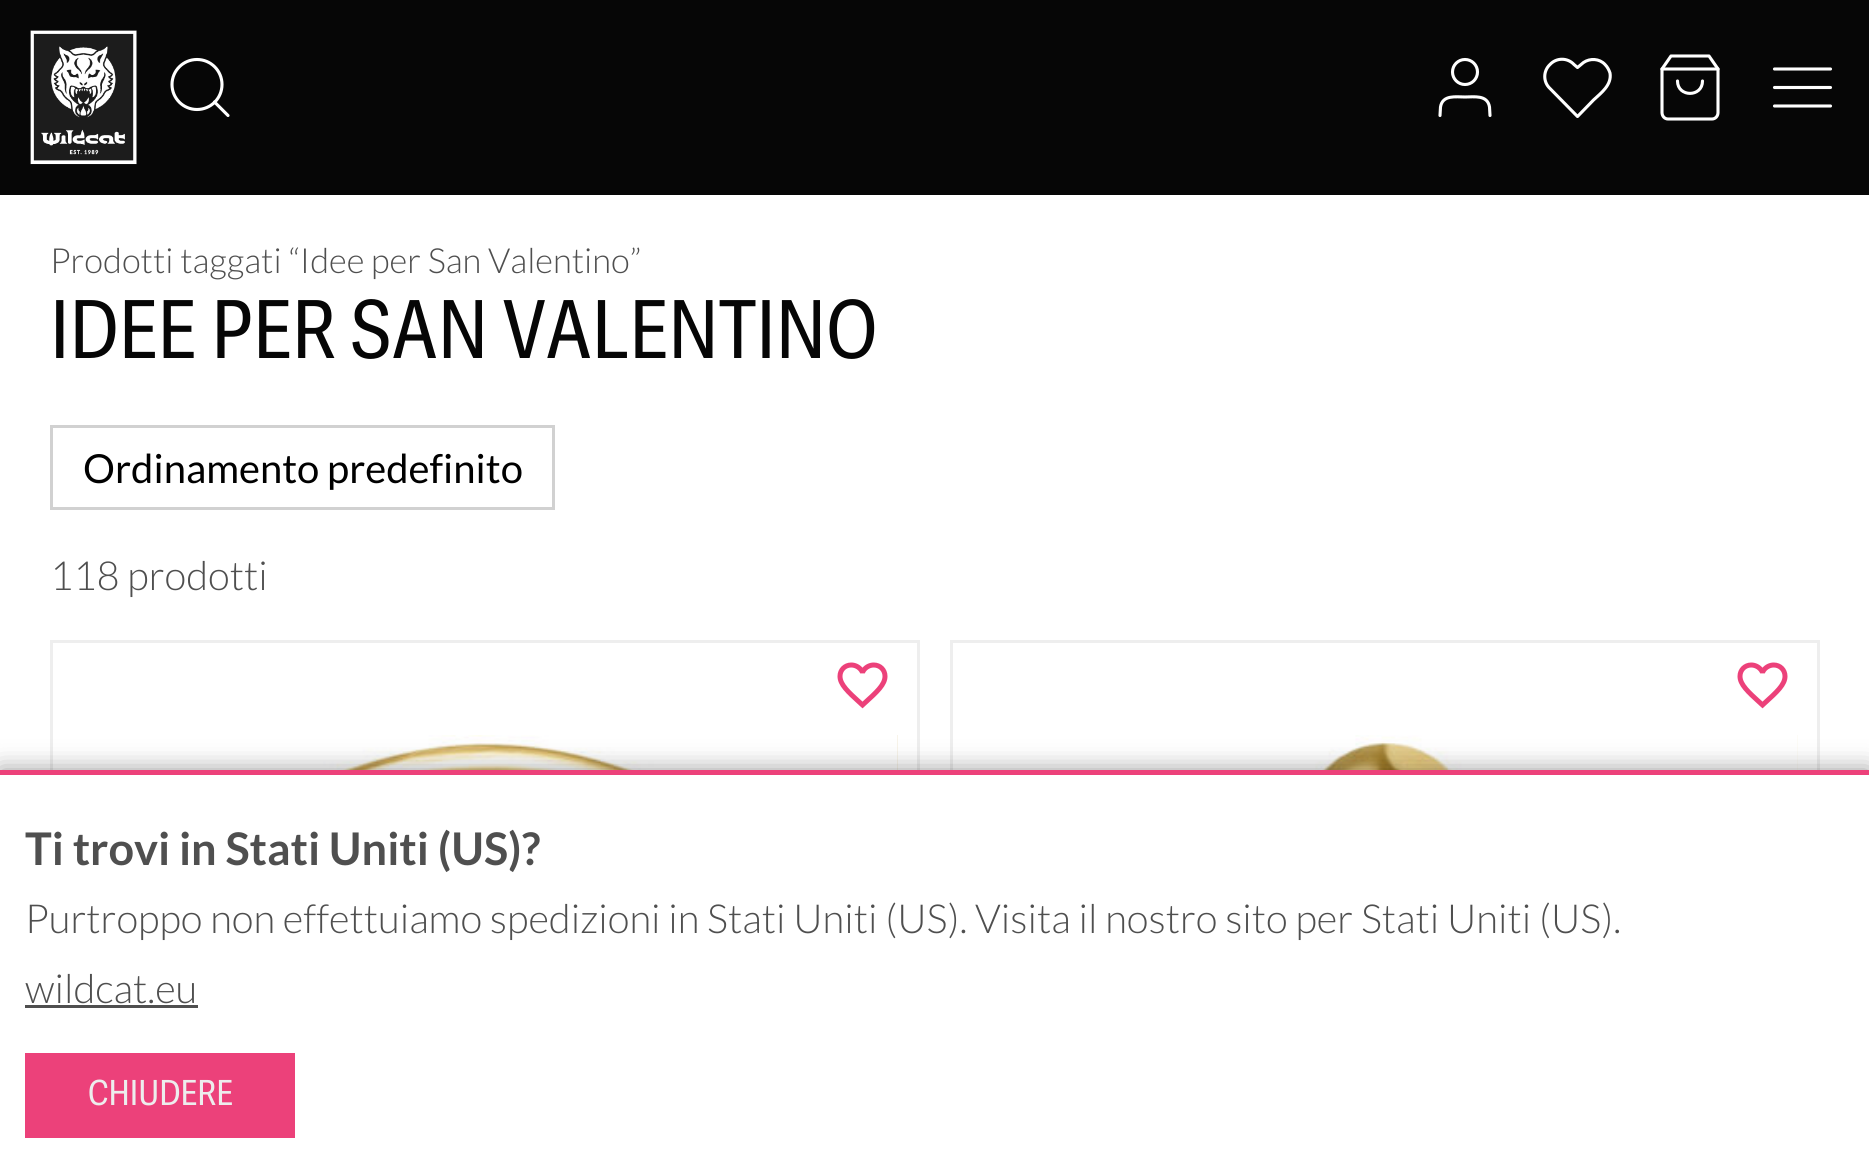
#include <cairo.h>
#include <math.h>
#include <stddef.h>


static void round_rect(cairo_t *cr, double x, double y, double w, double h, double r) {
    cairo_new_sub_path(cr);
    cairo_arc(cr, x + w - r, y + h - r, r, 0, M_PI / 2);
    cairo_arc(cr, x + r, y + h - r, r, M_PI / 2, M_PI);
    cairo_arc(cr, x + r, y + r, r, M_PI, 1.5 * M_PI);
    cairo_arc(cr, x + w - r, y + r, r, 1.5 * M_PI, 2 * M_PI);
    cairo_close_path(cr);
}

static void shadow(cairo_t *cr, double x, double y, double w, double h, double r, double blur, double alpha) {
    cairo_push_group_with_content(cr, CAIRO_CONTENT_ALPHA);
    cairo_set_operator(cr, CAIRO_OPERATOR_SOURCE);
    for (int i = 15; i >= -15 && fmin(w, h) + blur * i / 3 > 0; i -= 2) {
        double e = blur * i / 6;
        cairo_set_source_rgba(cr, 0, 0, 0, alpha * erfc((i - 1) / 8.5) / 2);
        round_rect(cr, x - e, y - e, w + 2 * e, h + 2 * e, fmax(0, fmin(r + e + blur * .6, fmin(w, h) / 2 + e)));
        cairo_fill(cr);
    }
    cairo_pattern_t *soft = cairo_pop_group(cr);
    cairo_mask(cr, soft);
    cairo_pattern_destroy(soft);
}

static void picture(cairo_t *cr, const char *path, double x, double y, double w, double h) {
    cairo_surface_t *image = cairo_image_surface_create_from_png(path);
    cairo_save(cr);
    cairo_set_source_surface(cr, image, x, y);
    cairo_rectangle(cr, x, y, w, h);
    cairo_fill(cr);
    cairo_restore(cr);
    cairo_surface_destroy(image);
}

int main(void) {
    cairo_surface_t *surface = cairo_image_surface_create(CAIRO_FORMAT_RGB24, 1869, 1173);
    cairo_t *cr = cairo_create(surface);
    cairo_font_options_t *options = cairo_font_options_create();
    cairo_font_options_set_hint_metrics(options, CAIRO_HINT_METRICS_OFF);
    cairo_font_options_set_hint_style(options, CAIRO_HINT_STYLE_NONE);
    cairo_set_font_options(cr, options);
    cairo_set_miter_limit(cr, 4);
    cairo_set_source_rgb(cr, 1, 1, 1);
    cairo_paint(cr);
    cairo_set_source_rgb(cr, 0.024, 0.024, 0.027);
    cairo_rectangle(cr, 0, 0, 1869, 195);
    cairo_fill(cr);
    picture(cr, "img1.png", 30, 30, 107, 135);
    cairo_arc(cr, 197, 84.5, 25, 0, 2 * M_PI);
    cairo_set_source_rgb(cr, 1, 1, 1);
    cairo_set_line_width(cr, 3.1);
    cairo_stroke(cr);
    cairo_new_path(cr);
    cairo_move_to(cr, 228, 115.5);
    cairo_line_to(cr, 214.5, 102);
    cairo_set_line_cap(cr, CAIRO_LINE_CAP_ROUND);
    cairo_set_line_join(cr, CAIRO_LINE_JOIN_ROUND);
    cairo_stroke(cr);
    cairo_arc(cr, 1465, 72, 12.5, 0, 2 * M_PI);
    cairo_set_line_cap(cr, CAIRO_LINE_CAP_BUTT);
    cairo_set_line_join(cr, CAIRO_LINE_JOIN_MITER);
    cairo_stroke(cr);
    cairo_new_path(cr);
    cairo_move_to(cr, 1490, 115.5);
    cairo_line_to(cr, 1489.5, 107);
    cairo_curve_to(cr, 1487.5, 94.5, 1474, 97, 1465, 97);
    cairo_curve_to(cr, 1456, 97, 1442.5, 94.5, 1440.5, 107);
    cairo_line_to(cr, 1440, 115.5);
    cairo_set_line_cap(cr, CAIRO_LINE_CAP_ROUND);
    cairo_set_line_join(cr, CAIRO_LINE_JOIN_ROUND);
    cairo_stroke(cr);
    cairo_new_path(cr);
    cairo_move_to(cr, 1605, 64.5);
    cairo_curve_to(cr, 1599.5, 58.5, 1590, 58, 1583.5, 62.5);
    cairo_line_to(cr, 1577.5, 67.5);
    cairo_line_to(cr, 1574, 64.5);
    cairo_curve_to(cr, 1567.5, 57.5, 1556.5, 57.5, 1550, 64.5);
    cairo_curve_to(cr, 1543, 71, 1543, 82, 1550, 88.5);
    cairo_line_to(cr, 1577.5, 116.5);
    cairo_line_to(cr, 1593.5, 100);
    cairo_curve_to(cr, 1601, 93, 1612, 85, 1610, 73);
    cairo_curve_to(cr, 1609, 70, 1607.5, 67, 1605, 64.5);
    cairo_close_path(cr);
    cairo_stroke(cr);
    cairo_new_path(cr);
    cairo_move_to(cr, 1671, 56);
    cairo_line_to(cr, 1662, 69);
    cairo_line_to(cr, 1662, 112.5);
    cairo_curve_to(cr, 1662, 116, 1664.5, 119, 1668, 119);
    cairo_line_to(cr, 1712, 119);
    cairo_curve_to(cr, 1715.5, 119, 1718, 116, 1718, 112.5);
    cairo_line_to(cr, 1718, 69);
    cairo_line_to(cr, 1709, 56);
    cairo_close_path(cr);
    cairo_stroke(cr);
    cairo_new_path(cr);
    cairo_move_to(cr, 1662, 69);
    cairo_line_to(cr, 1718, 69);
    cairo_move_to(cr, 1702.5, 81);
    cairo_curve_to(cr, 1702.5, 97.5, 1677.5, 97.5, 1677.5, 81);
    cairo_stroke(cr);
    cairo_new_path(cr);
    cairo_move_to(cr, 1774.5, 87.5);
    cairo_line_to(cr, 1830.5, 87.5);
    cairo_move_to(cr, 1774.5, 69);
    cairo_line_to(cr, 1830.5, 69);
    cairo_move_to(cr, 1774.5, 106);
    cairo_line_to(cr, 1830.5, 106);
    cairo_stroke(cr);
    cairo_select_font_face(cr, "Lato Light", CAIRO_FONT_SLANT_NORMAL, CAIRO_FONT_WEIGHT_NORMAL);
    cairo_set_font_size(cr, 34.6);
    cairo_set_source_rgb(cr, 0.31, 0.31, 0.31);
    cairo_move_to(cr, 50, 273);
    cairo_show_text(cr, "Prodotti taggati “Idee per San Valentino”");
    cairo_select_font_face(cr, "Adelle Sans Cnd", CAIRO_FONT_SLANT_NORMAL, CAIRO_FONT_WEIGHT_NORMAL);
    cairo_set_font_size(cr, 80);
    cairo_set_source_rgb(cr, 0.024, 0.024, 0.027);
    cairo_move_to(cr, 50, 358);
    cairo_show_text(cr, "IDEE PER SAN VALENTINO");
    cairo_rectangle(cr, 51.5, 426.5, 502, 82);
    cairo_set_source_rgb(cr, 0.82, 0.82, 0.82);
    cairo_set_line_width(cr, 3);
    cairo_set_line_cap(cr, CAIRO_LINE_CAP_BUTT);
    cairo_set_line_join(cr, CAIRO_LINE_JOIN_MITER);
    cairo_stroke(cr);
    cairo_select_font_face(cr, "Lato", CAIRO_FONT_SLANT_NORMAL, CAIRO_FONT_WEIGHT_NORMAL);
    cairo_set_font_size(cr, 40);
    cairo_set_source_rgb(cr, 0, 0, 0);
    cairo_move_to(cr, 83, 483);
    cairo_show_text(cr, "Ordinamento predefinito");
    cairo_select_font_face(cr, "Lato Light", CAIRO_FONT_SLANT_NORMAL, CAIRO_FONT_WEIGHT_NORMAL);
    cairo_set_source_rgb(cr, 0.31, 0.31, 0.31);
    cairo_move_to(cr, 50, 590);
    cairo_show_text(cr, "118 prodotti");
    cairo_rectangle(cr, 51.5, 641.5, 867, 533);
    cairo_set_source_rgb(cr, 0.933, 0.933, 0.933);
    cairo_stroke(cr);
    picture(cr, "img2.png", 837, 662, 51, 47);
    cairo_set_source_rgb(cr, 0.941, 0.91, 0.835);
    cairo_rectangle(cr, 897, 735, 1, 35);
    cairo_fill(cr);
    picture(cr, "img3.png", 72, 735, 826, 35);
    cairo_rectangle(cr, 951.5, 641.5, 867, 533);
    cairo_set_source_rgb(cr, 0.933, 0.933, 0.933);
    cairo_stroke(cr);
    picture(cr, "img2.png", 1737, 662, 51, 47);
    cairo_set_source_rgb(cr, 0.98, 0.969, 0.937);
    cairo_rectangle(cr, 1797, 735, 1, 35);
    cairo_fill(cr);
    picture(cr, "img4.png", 973, 735, 825, 35);
    cairo_set_source_rgb(cr, 0, 0, 0);
    shadow(cr, 0, 770, 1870, 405, 0, 12.5, 0.4);
    cairo_set_source_rgb(cr, 1, 1, 1);
    cairo_rectangle(cr, 0, 775, 1869, 398);
    cairo_fill(cr);
    cairo_set_source_rgb(cr, 0.925, 0.255, 0.478);
    cairo_rectangle(cr, 0, 770, 1869, 5);
    cairo_fill(cr);
    cairo_select_font_face(cr, "Lato", CAIRO_FONT_SLANT_NORMAL, CAIRO_FONT_WEIGHT_BOLD);
    cairo_set_font_size(cr, 45);
    cairo_set_source_rgb(cr, 0.31, 0.31, 0.31);
    cairo_move_to(cr, 25, 865);
    cairo_show_text(cr, "Ti trovi in Stati Uniti (US)?");
    cairo_select_font_face(cr, "Lato Light", CAIRO_FONT_SLANT_NORMAL, CAIRO_FONT_WEIGHT_NORMAL);
    cairo_set_font_size(cr, 40);
    cairo_move_to(cr, 25, 933);
    cairo_show_text(cr, "Purtroppo non effettuiamo spedizioni in Stati Uniti (US). Visita il nostro sito per Stati Uniti (US).");
    cairo_move_to(cr, 25, 1003);
    cairo_show_text(cr, "wildcat.eu");
    cairo_rectangle(cr, 25, 1005, 173, 3);
    cairo_fill(cr);
    cairo_set_source_rgb(cr, 0.925, 0.255, 0.478);
    cairo_rectangle(cr, 25, 1053, 270, 85);
    cairo_fill(cr);
    cairo_select_font_face(cr, "Adelle Sans Cnd", CAIRO_FONT_SLANT_NORMAL, CAIRO_FONT_WEIGHT_NORMAL);
    cairo_set_font_size(cr, 34.6);
    cairo_set_source_rgb(cr, 0.929, 0.929, 0.929);
    cairo_move_to(cr, 88, 1105);
    cairo_show_text(cr, "CHIUDERE");
    cairo_surface_write_to_png(surface, "page.png");
    cairo_font_options_destroy(options);
    cairo_destroy(cr);
    cairo_surface_destroy(surface);
    return 0;
}
